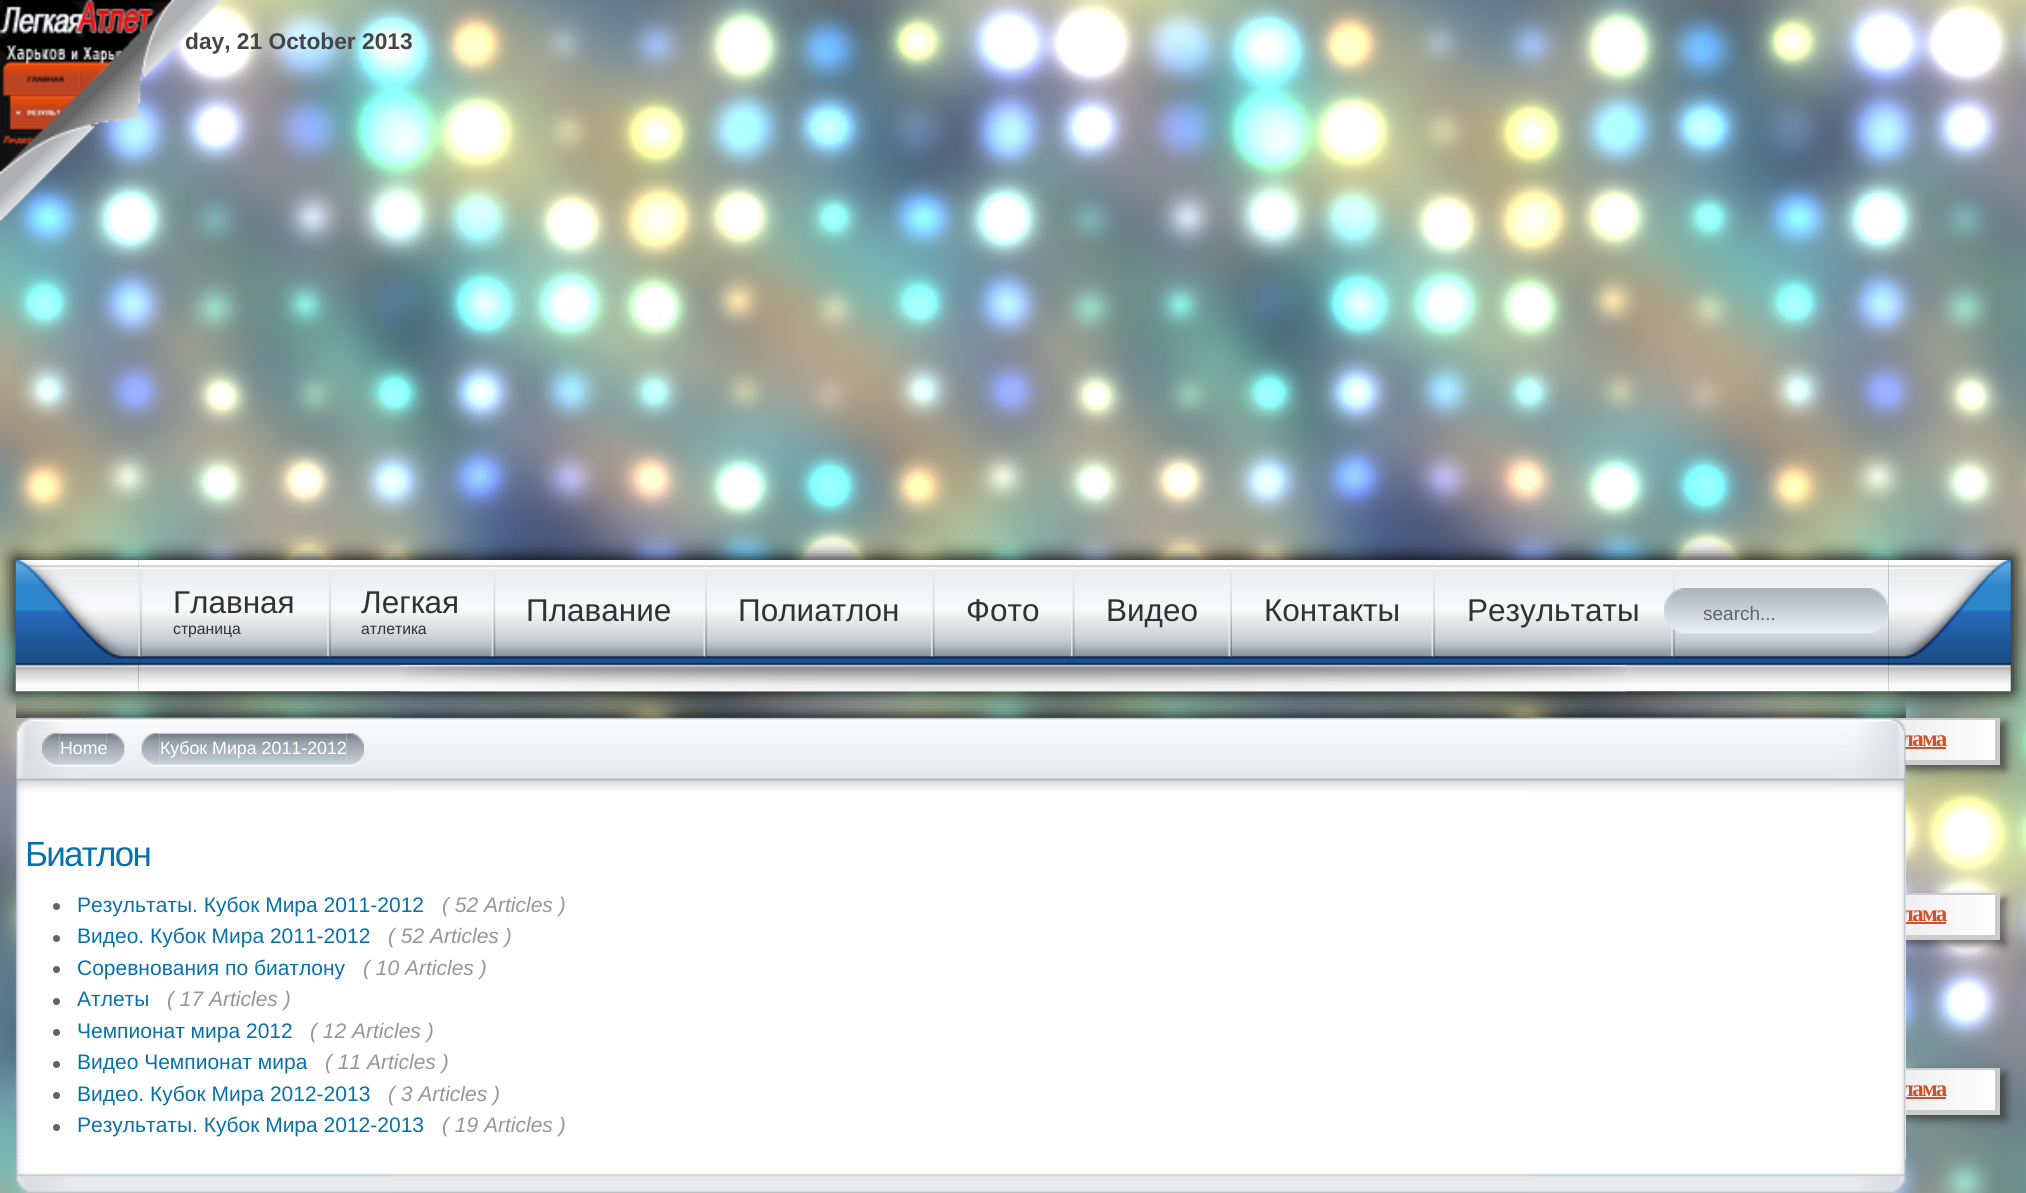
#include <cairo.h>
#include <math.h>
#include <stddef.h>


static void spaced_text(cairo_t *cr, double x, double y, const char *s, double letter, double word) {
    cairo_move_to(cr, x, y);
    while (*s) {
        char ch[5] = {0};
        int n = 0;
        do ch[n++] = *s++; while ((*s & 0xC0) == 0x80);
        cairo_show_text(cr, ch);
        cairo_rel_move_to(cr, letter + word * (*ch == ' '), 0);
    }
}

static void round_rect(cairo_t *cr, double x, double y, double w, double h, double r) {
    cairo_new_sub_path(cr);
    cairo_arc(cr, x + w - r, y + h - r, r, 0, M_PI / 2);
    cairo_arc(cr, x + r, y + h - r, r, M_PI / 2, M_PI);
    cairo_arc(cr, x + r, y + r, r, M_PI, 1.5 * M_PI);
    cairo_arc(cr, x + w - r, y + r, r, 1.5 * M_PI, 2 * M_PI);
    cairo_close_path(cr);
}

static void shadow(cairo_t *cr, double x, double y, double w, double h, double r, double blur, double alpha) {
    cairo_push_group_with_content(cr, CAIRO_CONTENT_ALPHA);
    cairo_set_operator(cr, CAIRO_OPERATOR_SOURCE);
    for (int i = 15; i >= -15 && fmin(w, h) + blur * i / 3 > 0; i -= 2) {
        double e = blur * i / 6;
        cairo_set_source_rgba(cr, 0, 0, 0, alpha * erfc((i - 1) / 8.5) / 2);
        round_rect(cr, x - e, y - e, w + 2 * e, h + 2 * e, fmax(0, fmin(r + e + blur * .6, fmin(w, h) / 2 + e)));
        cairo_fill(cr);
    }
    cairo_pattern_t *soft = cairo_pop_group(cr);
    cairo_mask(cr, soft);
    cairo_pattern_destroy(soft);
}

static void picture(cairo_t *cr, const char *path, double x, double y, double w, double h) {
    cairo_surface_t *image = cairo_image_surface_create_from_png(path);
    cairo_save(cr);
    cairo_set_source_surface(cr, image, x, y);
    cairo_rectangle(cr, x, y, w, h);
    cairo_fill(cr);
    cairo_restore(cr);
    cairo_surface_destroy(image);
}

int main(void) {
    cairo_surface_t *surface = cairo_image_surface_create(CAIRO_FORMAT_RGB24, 2026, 1193);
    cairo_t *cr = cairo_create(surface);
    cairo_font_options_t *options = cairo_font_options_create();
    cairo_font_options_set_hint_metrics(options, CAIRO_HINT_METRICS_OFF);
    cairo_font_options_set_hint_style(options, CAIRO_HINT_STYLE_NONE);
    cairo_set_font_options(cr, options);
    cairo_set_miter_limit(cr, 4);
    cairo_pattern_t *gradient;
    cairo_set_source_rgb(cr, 1, 1, 1);
    cairo_paint(cr);
    picture(cr, "img2.png", 0, 0, 2026, 1193);
    cairo_select_font_face(cr, "Liberation Sans", CAIRO_FONT_SLANT_NORMAL, CAIRO_FONT_WEIGHT_BOLD);
    cairo_set_font_size(cr, 22.75);
    cairo_set_source_rgb(cr, 0.275, 0.275, 0.275);
    cairo_move_to(cr, 185, 49);
    cairo_show_text(cr, "day, 21 October 2013");
    picture(cr, "img1.png", 0, 0, 221, 221);
    cairo_set_source_rgb(cr, 0.196, 0.196, 0.196);
    shadow(cr, 1824, 723, 182, 47, 0, 4.5, 0.75);
    gradient = cairo_pattern_create_linear(1995, 739, 1820, 739);
    cairo_pattern_add_color_stop_rgba(gradient, 0, 1, 1, 1, 1);
    cairo_pattern_add_color_stop_rgba(gradient, 1, 0.875, 0.875, 0.875, 1);
    cairo_set_source(cr, gradient);
    cairo_pattern_destroy(gradient);
    cairo_rectangle(cr, 1895, 720, 100, 40);
    cairo_fill(cr);
    cairo_set_source_rgb(cr, 0.8, 0.8, 0.8);
    cairo_rectangle(cr, 1891, 718, 109, 2);
    cairo_fill(cr);
    cairo_rectangle(cr, 1995, 718, 5, 47);
    cairo_fill(cr);
    cairo_rectangle(cr, 1905, 760, 95, 5);
    cairo_fill(cr);
    cairo_set_source_rgb(cr, 0.824, 0.314, 0.157);
    cairo_rectangle(cr, 1905, 747, 41, 2);
    cairo_fill(cr);
    cairo_set_source_rgb(cr, 0.196, 0.196, 0.196);
    shadow(cr, 1824, 898, 182, 47, 0, 4.5, 0.75);
    gradient = cairo_pattern_create_linear(1995, 914, 1820, 914);
    cairo_pattern_add_color_stop_rgba(gradient, 0, 1, 1, 1, 1);
    cairo_pattern_add_color_stop_rgba(gradient, 1, 0.875, 0.875, 0.875, 1);
    cairo_set_source(cr, gradient);
    cairo_pattern_destroy(gradient);
    cairo_rectangle(cr, 1906, 895, 89, 40);
    cairo_fill(cr);
    cairo_set_source_rgb(cr, 0.8, 0.8, 0.8);
    cairo_rectangle(cr, 1906, 893, 94, 2);
    cairo_fill(cr);
    cairo_rectangle(cr, 1995, 893, 5, 47);
    cairo_fill(cr);
    cairo_rectangle(cr, 1906, 935, 94, 5);
    cairo_fill(cr);
    cairo_set_source_rgb(cr, 0.824, 0.314, 0.157);
    cairo_rectangle(cr, 1906, 922, 40, 2);
    cairo_fill(cr);
    cairo_set_source_rgb(cr, 0.196, 0.196, 0.196);
    shadow(cr, 1824, 1073, 182, 47, 0, 4.5, 0.75);
    gradient = cairo_pattern_create_linear(1995, 1089, 1820, 1089);
    cairo_pattern_add_color_stop_rgba(gradient, 0, 1, 1, 1, 1);
    cairo_pattern_add_color_stop_rgba(gradient, 1, 0.875, 0.875, 0.875, 1);
    cairo_set_source(cr, gradient);
    cairo_pattern_destroy(gradient);
    cairo_rectangle(cr, 1906, 1070, 89, 40);
    cairo_fill(cr);
    cairo_set_source_rgb(cr, 0.8, 0.8, 0.8);
    cairo_rectangle(cr, 1906, 1068, 94, 2);
    cairo_fill(cr);
    cairo_rectangle(cr, 1995, 1068, 5, 47);
    cairo_fill(cr);
    cairo_rectangle(cr, 1906, 1110, 94, 5);
    cairo_fill(cr);
    cairo_set_source_rgb(cr, 0.824, 0.314, 0.157);
    cairo_rectangle(cr, 1906, 1097, 40, 2);
    cairo_fill(cr);
    cairo_save(cr);
    cairo_rectangle(cr, 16, 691, 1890, 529);
    cairo_clip(cr);
    cairo_set_fill_rule(cr, CAIRO_FILL_RULE_EVEN_ODD);
    cairo_new_path(cr);
    cairo_move_to(cr, 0, 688);
    cairo_line_to(cr, 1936, 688);
    cairo_line_to(cr, 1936, 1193);
    cairo_line_to(cr, 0, 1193);
    cairo_close_path(cr);
    cairo_move_to(cr, 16, 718);
    cairo_line_to(cr, 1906, 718);
    cairo_line_to(cr, 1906, 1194);
    cairo_line_to(cr, 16, 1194);
    cairo_close_path(cr);
    cairo_clip(cr);
    cairo_set_source_rgb(cr, 0, 0, 0);
    shadow(cr, 14, 716, 1894, 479, 0, 9, 1);
    cairo_restore(cr);
    cairo_select_font_face(cr, "Liberation Serif", CAIRO_FONT_SLANT_NORMAL, CAIRO_FONT_WEIGHT_BOLD);
    cairo_set_font_size(cr, 23);
    spaced_text(cr, 1901, 921, "лама", -1.75, 0);
    spaced_text(cr, 1901, 1096, "лама", -1.75, 0);
    cairo_set_source_rgb(cr, 1, 1, 1);
    cairo_rectangle(cr, 16, 779, 1890, 380);
    cairo_fill(cr);
    picture(cr, "img22.png", 15, 779, 19, 380);
    picture(cr, "img13.png", 16, 717, 376, 75);
    picture(cr, "img23.png", 1888, 778, 18, 381);
    cairo_set_source_rgb(cr, 0.824, 0.314, 0.157);
    spaced_text(cr, 1901, 746, "лама", -1.75, 0);
    picture(cr, "img14.png", 1529, 717, 377, 88);
    picture(cr, "img15.png", 86, 717, 1750, 74);
    cairo_set_source_rgb(cr, 0, 0, 0);
    shadow(cr, 14, 558, 1999, 135, 0, 9, 1);
    picture(cr, "img3.png", 15, 560, 124, 132);
    picture(cr, "img4.png", 1888, 560, 123, 132);
    picture(cr, "img5.png", 138, 560, 1751, 132);
    picture(cr, "img6.png", 400, 665, 1226, 27);
    picture(cr, "img7.png", 138, 567, 4, 90);
    picture(cr, "img8.png", 327, 567, 4, 90);
    cairo_select_font_face(cr, "Liberation Sans", CAIRO_FONT_SLANT_NORMAL, CAIRO_FONT_WEIGHT_NORMAL);
    cairo_set_font_size(cr, 31.5);
    cairo_set_source_rgb(cr, 0.196, 0.196, 0.196);
    cairo_move_to(cr, 173, 613);
    cairo_show_text(cr, "Главная");
    cairo_set_font_size(cr, 15.75);
    cairo_move_to(cr, 173, 634);
    cairo_show_text(cr, "страница");
    picture(cr, "img9.png", 491, 567, 5, 90);
    cairo_set_font_size(cr, 31.5);
    cairo_move_to(cr, 361, 613);
    cairo_show_text(cr, "Легкая");
    cairo_set_font_size(cr, 15.75);
    cairo_move_to(cr, 361, 634);
    cairo_show_text(cr, "атлетика");
    picture(cr, "img10.png", 703, 567, 4, 90);
    cairo_set_font_size(cr, 31.5);
    cairo_move_to(cr, 526, 621);
    cairo_show_text(cr, "Плавание");
    picture(cr, "img11.png", 931, 567, 4, 90);
    cairo_move_to(cr, 738, 621);
    cairo_show_text(cr, "Полиатлон");
    picture(cr, "img11.png", 1071, 567, 4, 90);
    cairo_move_to(cr, 966, 621);
    cairo_show_text(cr, "Фото");
    picture(cr, "img10.png", 1228, 567, 4, 90);
    cairo_move_to(cr, 1106, 621);
    cairo_show_text(cr, "Видео");
    picture(cr, "img10.png", 1431, 567, 4, 90);
    cairo_move_to(cr, 1264, 621);
    cairo_show_text(cr, "Контакты");
    picture(cr, "img8.png", 1671, 567, 4, 90);
    cairo_move_to(cr, 1467, 621);
    cairo_show_text(cr, "Результаты");
    picture(cr, "img12.png", 1664, 588, 225, 46);
    cairo_set_font_size(cr, 19);
    cairo_set_source_rgb(cr, 0.392, 0.392, 0.392);
    cairo_move_to(cr, 1703, 620);
    cairo_show_text(cr, "search...");
    picture(cr, "img16.png", 42, 733, 18, 34);
    picture(cr, "img17.png", 106, 733, 19, 34);
    picture(cr, "img18.png", 59, 733, 48, 34);
    cairo_set_font_size(cr, 17.8);
    cairo_set_source_rgb(cr, 1, 1, 1);
    cairo_move_to(cr, 60, 754);
    cairo_show_text(cr, "Home");
    picture(cr, "img19.png", 141, 733, 19, 34);
    picture(cr, "img20.png", 346, 733, 18, 34);
    picture(cr, "img21.png", 159, 733, 188, 34);
    cairo_move_to(cr, 160, 754);
    cairo_show_text(cr, "Кубок Мира 2011-2012");
    cairo_set_font_size(cr, 35);
    cairo_set_source_rgb(cr, 0.024, 0.443, 0.678);
    spaced_text(cr, 25, 866, "Биатлон", -1.75, 0);
    cairo_set_source_rgb(cr, 0.392, 0.392, 0.392);
    cairo_new_path(cr);
    cairo_arc(cr, 56.5, 906.5, 3.5, 0, 2 * M_PI);
    cairo_fill(cr);
    cairo_set_font_size(cr, 21);
    cairo_set_source_rgb(cr, 0.024, 0.443, 0.678);
    cairo_move_to(cr, 77, 912);
    cairo_show_text(cr, "Результаты. Кубок Мира 2011-2012");
    cairo_select_font_face(cr, "Liberation Sans", CAIRO_FONT_SLANT_ITALIC, CAIRO_FONT_WEIGHT_NORMAL);
    cairo_set_source_rgb(cr, 0.588, 0.588, 0.588);
    cairo_move_to(cr, 442, 912);
    cairo_show_text(cr, "( 52 Articles )");
    cairo_set_source_rgb(cr, 0.392, 0.392, 0.392);
    cairo_new_path(cr);
    cairo_arc(cr, 56.5, 938.5, 3.5, 0, 2 * M_PI);
    cairo_fill(cr);
    cairo_select_font_face(cr, "Liberation Sans", CAIRO_FONT_SLANT_NORMAL, CAIRO_FONT_WEIGHT_NORMAL);
    cairo_set_source_rgb(cr, 0.024, 0.443, 0.678);
    cairo_move_to(cr, 77, 943);
    cairo_show_text(cr, "Видео. Кубок Мира 2011-2012");
    cairo_select_font_face(cr, "Liberation Sans", CAIRO_FONT_SLANT_ITALIC, CAIRO_FONT_WEIGHT_NORMAL);
    cairo_set_source_rgb(cr, 0.588, 0.588, 0.588);
    cairo_move_to(cr, 388, 943);
    cairo_show_text(cr, "( 52 Articles )");
    cairo_set_source_rgb(cr, 0.392, 0.392, 0.392);
    cairo_new_path(cr);
    cairo_arc(cr, 56.5, 969.5, 3.5, 0, 2 * M_PI);
    cairo_fill(cr);
    cairo_select_font_face(cr, "Liberation Sans", CAIRO_FONT_SLANT_NORMAL, CAIRO_FONT_WEIGHT_NORMAL);
    cairo_set_source_rgb(cr, 0.024, 0.443, 0.678);
    cairo_move_to(cr, 77, 975);
    cairo_show_text(cr, "Соревнования по биатлону");
    cairo_select_font_face(cr, "Liberation Sans", CAIRO_FONT_SLANT_ITALIC, CAIRO_FONT_WEIGHT_NORMAL);
    cairo_set_source_rgb(cr, 0.588, 0.588, 0.588);
    cairo_move_to(cr, 363, 975);
    cairo_show_text(cr, "( 10 Articles )");
    cairo_set_source_rgb(cr, 0.392, 0.392, 0.392);
    cairo_new_path(cr);
    cairo_arc(cr, 56.5, 1001.5, 3.5, 0, 2 * M_PI);
    cairo_fill(cr);
    cairo_select_font_face(cr, "Liberation Sans", CAIRO_FONT_SLANT_NORMAL, CAIRO_FONT_WEIGHT_NORMAL);
    cairo_set_source_rgb(cr, 0.024, 0.443, 0.678);
    cairo_move_to(cr, 77, 1006);
    cairo_show_text(cr, "Атлеты");
    cairo_select_font_face(cr, "Liberation Sans", CAIRO_FONT_SLANT_ITALIC, CAIRO_FONT_WEIGHT_NORMAL);
    cairo_set_source_rgb(cr, 0.588, 0.588, 0.588);
    cairo_move_to(cr, 167, 1006);
    cairo_show_text(cr, "( 17 Articles )");
    cairo_set_source_rgb(cr, 0.392, 0.392, 0.392);
    cairo_new_path(cr);
    cairo_arc(cr, 56.5, 1032.5, 3.5, 0, 2 * M_PI);
    cairo_fill(cr);
    cairo_select_font_face(cr, "Liberation Sans", CAIRO_FONT_SLANT_NORMAL, CAIRO_FONT_WEIGHT_NORMAL);
    cairo_set_source_rgb(cr, 0.024, 0.443, 0.678);
    cairo_move_to(cr, 77, 1038);
    cairo_show_text(cr, "Чемпионат мира 2012");
    cairo_select_font_face(cr, "Liberation Sans", CAIRO_FONT_SLANT_ITALIC, CAIRO_FONT_WEIGHT_NORMAL);
    cairo_set_source_rgb(cr, 0.588, 0.588, 0.588);
    cairo_move_to(cr, 310, 1038);
    cairo_show_text(cr, "( 12 Articles )");
    cairo_set_source_rgb(cr, 0.392, 0.392, 0.392);
    cairo_new_path(cr);
    cairo_arc(cr, 56.5, 1064.5, 3.5, 0, 2 * M_PI);
    cairo_fill(cr);
    cairo_select_font_face(cr, "Liberation Sans", CAIRO_FONT_SLANT_NORMAL, CAIRO_FONT_WEIGHT_NORMAL);
    cairo_set_source_rgb(cr, 0.024, 0.443, 0.678);
    cairo_move_to(cr, 77, 1069);
    cairo_show_text(cr, "Видео Чемпионат мира");
    cairo_select_font_face(cr, "Liberation Sans", CAIRO_FONT_SLANT_ITALIC, CAIRO_FONT_WEIGHT_NORMAL);
    cairo_set_source_rgb(cr, 0.588, 0.588, 0.588);
    cairo_move_to(cr, 325, 1069);
    cairo_show_text(cr, "( 11 Articles )");
    cairo_set_source_rgb(cr, 0.392, 0.392, 0.392);
    cairo_new_path(cr);
    cairo_arc(cr, 56.5, 1095.5, 3.5, 0, 2 * M_PI);
    cairo_fill(cr);
    cairo_select_font_face(cr, "Liberation Sans", CAIRO_FONT_SLANT_NORMAL, CAIRO_FONT_WEIGHT_NORMAL);
    cairo_set_source_rgb(cr, 0.024, 0.443, 0.678);
    cairo_move_to(cr, 77, 1101);
    cairo_show_text(cr, "Видео. Кубок Мира 2012-2013");
    cairo_select_font_face(cr, "Liberation Sans", CAIRO_FONT_SLANT_ITALIC, CAIRO_FONT_WEIGHT_NORMAL);
    cairo_set_source_rgb(cr, 0.588, 0.588, 0.588);
    cairo_move_to(cr, 388, 1101);
    cairo_show_text(cr, "( 3 Articles )");
    cairo_set_source_rgb(cr, 0.392, 0.392, 0.392);
    cairo_new_path(cr);
    cairo_arc(cr, 56.5, 1127.5, 3.5, 0, 2 * M_PI);
    cairo_fill(cr);
    cairo_select_font_face(cr, "Liberation Sans", CAIRO_FONT_SLANT_NORMAL, CAIRO_FONT_WEIGHT_NORMAL);
    cairo_set_source_rgb(cr, 0.024, 0.443, 0.678);
    cairo_move_to(cr, 77, 1132);
    cairo_show_text(cr, "Результаты. Кубок Мира 2012-2013");
    cairo_select_font_face(cr, "Liberation Sans", CAIRO_FONT_SLANT_ITALIC, CAIRO_FONT_WEIGHT_NORMAL);
    cairo_set_source_rgb(cr, 0.588, 0.588, 0.588);
    cairo_move_to(cr, 442, 1132);
    cairo_show_text(cr, "( 19 Articles )");
    picture(cr, "img24.png", 15, 1158, 377, 35);
    picture(cr, "img25.png", 1529, 1158, 377, 35);
    picture(cr, "img26.png", 392, 1159, 1138, 34);
    cairo_surface_write_to_png(surface, "page.png");
    cairo_font_options_destroy(options);
    cairo_destroy(cr);
    cairo_surface_destroy(surface);
    return 0;
}
